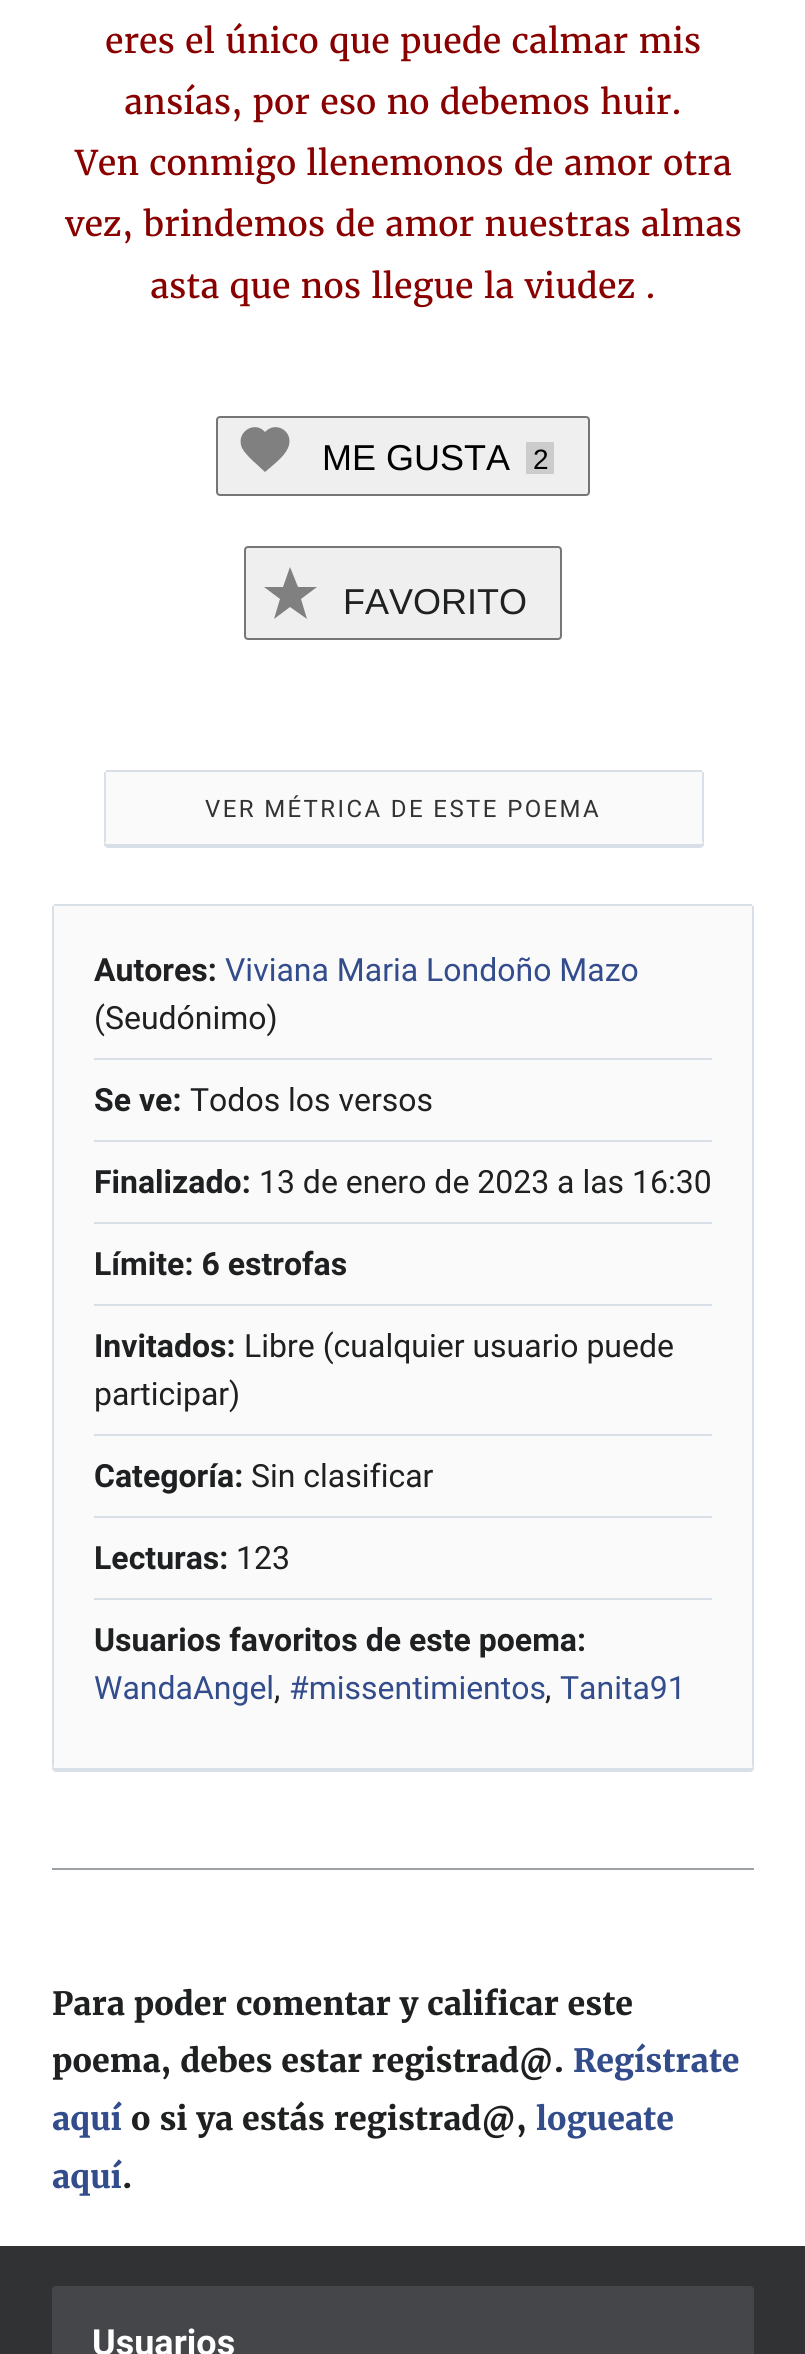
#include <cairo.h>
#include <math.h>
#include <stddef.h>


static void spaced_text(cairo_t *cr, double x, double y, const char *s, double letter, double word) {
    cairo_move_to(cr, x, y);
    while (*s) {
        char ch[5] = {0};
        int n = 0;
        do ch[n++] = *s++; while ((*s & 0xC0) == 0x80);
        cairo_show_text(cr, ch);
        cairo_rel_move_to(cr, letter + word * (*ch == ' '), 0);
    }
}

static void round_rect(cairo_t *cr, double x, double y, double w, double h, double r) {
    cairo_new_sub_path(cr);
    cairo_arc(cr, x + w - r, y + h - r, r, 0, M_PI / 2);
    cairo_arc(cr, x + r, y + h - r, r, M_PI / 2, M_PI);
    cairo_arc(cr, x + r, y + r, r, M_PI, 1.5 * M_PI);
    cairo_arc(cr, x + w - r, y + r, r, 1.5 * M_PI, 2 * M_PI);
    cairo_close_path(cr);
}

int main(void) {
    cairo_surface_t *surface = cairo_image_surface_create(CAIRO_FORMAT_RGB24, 805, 2354);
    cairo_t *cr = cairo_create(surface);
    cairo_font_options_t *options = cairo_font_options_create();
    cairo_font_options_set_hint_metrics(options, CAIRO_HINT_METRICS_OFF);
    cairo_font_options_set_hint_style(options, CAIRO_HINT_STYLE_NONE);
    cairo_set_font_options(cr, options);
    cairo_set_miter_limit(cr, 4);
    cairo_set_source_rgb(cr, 1, 1, 1);
    cairo_paint(cr);
    cairo_select_font_face(cr, "Merriweather", CAIRO_FONT_SLANT_NORMAL, CAIRO_FONT_WEIGHT_NORMAL);
    cairo_set_font_size(cr, 34);
    cairo_set_source_rgb(cr, 0.533, 0, 0);
    cairo_move_to(cr, 105, 53);
    cairo_show_text(cr, "eres el único que puede calmar mis");
    cairo_move_to(cr, 124, 114);
    cairo_show_text(cr, "ansías, por eso no debemos huir.");
    cairo_move_to(cr, 75, 175);
    cairo_show_text(cr, "Ven conmigo llenemonos de amor otra");
    cairo_move_to(cr, 65, 236);
    cairo_show_text(cr, "vez, brindemos de amor nuestras almas");
    cairo_move_to(cr, 150, 298);
    cairo_show_text(cr, "asta que nos llegue la viudez .");
    cairo_set_source_rgb(cr, 0.937, 0.937, 0.937);
    round_rect(cr, 217, 417, 372, 78, 3);
    cairo_fill_preserve(cr);
    cairo_set_source_rgb(cr, 0.463, 0.463, 0.463);
    cairo_stroke(cr);
    cairo_set_source_rgb(cr, 0.502, 0.502, 0.502);
    cairo_new_path(cr);
    cairo_move_to(cr, 265, 472);
    cairo_curve_to(cr, 258, 465, 247, 457, 242, 448);
    cairo_curve_to(cr, 235, 432, 255, 420, 265, 432);
    cairo_curve_to(cr, 276, 420, 295, 432, 288, 448);
    cairo_curve_to(cr, 284, 457, 273, 465, 265, 472);
    cairo_close_path(cr);
    cairo_fill(cr);
    cairo_select_font_face(cr, "Liberation Sans", CAIRO_FONT_SLANT_NORMAL, CAIRO_FONT_WEIGHT_NORMAL);
    cairo_set_font_size(cr, 36);
    cairo_set_source_rgb(cr, 0, 0, 0);
    cairo_move_to(cr, 322, 470);
    cairo_show_text(cr, "ME GUSTA");
    cairo_set_source_rgb(cr, 0.8, 0.8, 0.8);
    cairo_rectangle(cr, 526, 442, 28, 32);
    cairo_fill(cr);
    cairo_set_font_size(cr, 28);
    cairo_set_source_rgb(cr, 0, 0, 0);
    cairo_move_to(cr, 533, 469);
    cairo_show_text(cr, "2");
    cairo_set_source_rgb(cr, 0.937, 0.937, 0.937);
    round_rect(cr, 245, 547, 316, 92, 3);
    cairo_fill_preserve(cr);
    cairo_set_source_rgb(cr, 0.463, 0.463, 0.463);
    cairo_stroke(cr);
    cairo_set_font_size(cr, 36);
    cairo_set_source_rgb(cr, 0.122, 0.125, 0.129);
    cairo_move_to(cr, 343, 614);
    cairo_show_text(cr, "FAVORITO");
    cairo_set_source_rgb(cr, 0.502, 0.502, 0.502);
    cairo_new_path(cr);
    cairo_move_to(cr, 290, 567);
    cairo_line_to(cr, 298, 587);
    cairo_line_to(cr, 317, 587);
    cairo_line_to(cr, 301, 599);
    cairo_line_to(cr, 307, 619);
    cairo_line_to(cr, 290, 607);
    cairo_line_to(cr, 274, 619);
    cairo_line_to(cr, 280, 599);
    cairo_line_to(cr, 264, 587);
    cairo_line_to(cr, 283, 587);
    cairo_close_path(cr);
    cairo_fill(cr);
    cairo_set_source_rgb(cr, 0.847, 0.875, 0.902);
    cairo_new_path(cr);
    cairo_move_to(cr, 104, 840);
    cairo_line_to(cr, 104, 844);
    cairo_curve_to(cr, 104, 846, 106, 848, 108, 848);
    cairo_line_to(cr, 700, 848);
    cairo_curve_to(cr, 702, 848, 704, 846, 704, 844);
    cairo_line_to(cr, 704, 840);
    cairo_curve_to(cr, 704, 842, 702, 844, 700, 844);
    cairo_line_to(cr, 108, 844);
    cairo_curve_to(cr, 106, 844, 104, 842, 104, 840);
    cairo_close_path(cr);
    cairo_fill(cr);
    cairo_set_source_rgb(cr, 0.98, 0.98, 0.98);
    round_rect(cr, 104, 770, 600, 74, 4);
    cairo_fill(cr);
    cairo_set_source_rgb(cr, 0.847, 0.875, 0.902);
    cairo_rectangle(cr, 106, 770, 596, 2);
    cairo_fill(cr);
    cairo_rectangle(cr, 702, 772, 2, 70);
    cairo_fill(cr);
    cairo_rectangle(cr, 104, 772, 2, 70);
    cairo_fill(cr);
    cairo_select_font_face(cr, "Roboto", CAIRO_FONT_SLANT_NORMAL, CAIRO_FONT_WEIGHT_NORMAL);
    cairo_set_font_size(cr, 24);
    cairo_set_source_rgb(cr, 0.2, 0.2, 0.2);
    spaced_text(cr, 205, 817, "VER MÉTRICA DE ESTE POEMA", 2.4, 0);
    cairo_set_source_rgb(cr, 0.847, 0.875, 0.902);
    cairo_new_path(cr);
    cairo_move_to(cr, 52, 1764);
    cairo_line_to(cr, 52, 1768);
    cairo_curve_to(cr, 52, 1770, 54, 1772, 56, 1772);
    cairo_line_to(cr, 750, 1772);
    cairo_curve_to(cr, 752, 1772, 754, 1770, 754, 1768);
    cairo_line_to(cr, 754, 1764);
    cairo_curve_to(cr, 754, 1766, 752, 1768, 750, 1768);
    cairo_line_to(cr, 56, 1768);
    cairo_curve_to(cr, 54, 1768, 52, 1766, 52, 1764);
    cairo_close_path(cr);
    cairo_fill(cr);
    cairo_set_source_rgb(cr, 0.98, 0.98, 0.98);
    round_rect(cr, 52, 904, 702, 864, 4);
    cairo_fill(cr);
    cairo_set_source_rgb(cr, 0.847, 0.875, 0.902);
    cairo_rectangle(cr, 54, 904, 698, 2);
    cairo_fill(cr);
    cairo_rectangle(cr, 752, 906, 2, 860);
    cairo_fill(cr);
    cairo_rectangle(cr, 52, 906, 2, 860);
    cairo_fill(cr);
    cairo_rectangle(cr, 94, 1058, 618, 2);
    cairo_fill(cr);
    cairo_select_font_face(cr, "Roboto", CAIRO_FONT_SLANT_NORMAL, CAIRO_FONT_WEIGHT_BOLD);
    cairo_set_font_size(cr, 32);
    cairo_set_source_rgb(cr, 0.122, 0.125, 0.129);
    cairo_move_to(cr, 94, 981);
    cairo_show_text(cr, "Autores:");
    cairo_select_font_face(cr, "Roboto", CAIRO_FONT_SLANT_NORMAL, CAIRO_FONT_WEIGHT_NORMAL);
    cairo_set_source_rgb(cr, 0.196, 0.298, 0.549);
    cairo_move_to(cr, 225, 981);
    cairo_show_text(cr, "Viviana Maria Londoño Mazo");
    cairo_set_source_rgb(cr, 0.122, 0.125, 0.129);
    cairo_move_to(cr, 94, 1029);
    cairo_show_text(cr, "(Seudónimo)");
    cairo_set_source_rgb(cr, 0.847, 0.875, 0.902);
    cairo_rectangle(cr, 94, 1140, 618, 2);
    cairo_fill(cr);
    cairo_select_font_face(cr, "Roboto", CAIRO_FONT_SLANT_NORMAL, CAIRO_FONT_WEIGHT_BOLD);
    cairo_set_source_rgb(cr, 0.122, 0.125, 0.129);
    cairo_move_to(cr, 94, 1111);
    cairo_show_text(cr, "Se ve:");
    cairo_select_font_face(cr, "Roboto", CAIRO_FONT_SLANT_NORMAL, CAIRO_FONT_WEIGHT_NORMAL);
    cairo_move_to(cr, 190, 1111);
    cairo_show_text(cr, "Todos los versos");
    cairo_set_source_rgb(cr, 0.847, 0.875, 0.902);
    cairo_rectangle(cr, 94, 1222, 618, 2);
    cairo_fill(cr);
    cairo_select_font_face(cr, "Roboto", CAIRO_FONT_SLANT_NORMAL, CAIRO_FONT_WEIGHT_BOLD);
    cairo_set_source_rgb(cr, 0.122, 0.125, 0.129);
    cairo_move_to(cr, 94, 1193);
    cairo_show_text(cr, "Finalizado:");
    cairo_select_font_face(cr, "Roboto", CAIRO_FONT_SLANT_NORMAL, CAIRO_FONT_WEIGHT_NORMAL);
    cairo_move_to(cr, 259, 1193);
    cairo_show_text(cr, "13 de enero de 2023 a las 16:30");
    cairo_set_source_rgb(cr, 0.847, 0.875, 0.902);
    cairo_rectangle(cr, 94, 1304, 618, 2);
    cairo_fill(cr);
    cairo_select_font_face(cr, "Roboto", CAIRO_FONT_SLANT_NORMAL, CAIRO_FONT_WEIGHT_BOLD);
    cairo_set_source_rgb(cr, 0.122, 0.125, 0.129);
    cairo_move_to(cr, 94, 1275);
    cairo_show_text(cr, "Límite: 6 estrofas");
    cairo_set_source_rgb(cr, 0.847, 0.875, 0.902);
    cairo_rectangle(cr, 94, 1434, 618, 2);
    cairo_fill(cr);
    cairo_set_source_rgb(cr, 0.122, 0.125, 0.129);
    cairo_move_to(cr, 94, 1357);
    cairo_show_text(cr, "Invitados:");
    cairo_select_font_face(cr, "Roboto", CAIRO_FONT_SLANT_NORMAL, CAIRO_FONT_WEIGHT_NORMAL);
    cairo_move_to(cr, 244, 1357);
    cairo_show_text(cr, "Libre (cualquier usuario puede");
    cairo_move_to(cr, 94, 1405);
    cairo_show_text(cr, "participar)");
    cairo_set_source_rgb(cr, 0.847, 0.875, 0.902);
    cairo_rectangle(cr, 94, 1516, 618, 2);
    cairo_fill(cr);
    cairo_select_font_face(cr, "Roboto", CAIRO_FONT_SLANT_NORMAL, CAIRO_FONT_WEIGHT_BOLD);
    cairo_set_source_rgb(cr, 0.122, 0.125, 0.129);
    cairo_move_to(cr, 94, 1487);
    cairo_show_text(cr, "Categoría:");
    cairo_select_font_face(cr, "Roboto", CAIRO_FONT_SLANT_NORMAL, CAIRO_FONT_WEIGHT_NORMAL);
    cairo_move_to(cr, 251, 1487);
    cairo_show_text(cr, "Sin clasificar");
    cairo_set_source_rgb(cr, 0.847, 0.875, 0.902);
    cairo_rectangle(cr, 94, 1598, 618, 2);
    cairo_fill(cr);
    cairo_select_font_face(cr, "Roboto", CAIRO_FONT_SLANT_NORMAL, CAIRO_FONT_WEIGHT_BOLD);
    cairo_set_source_rgb(cr, 0.122, 0.125, 0.129);
    cairo_move_to(cr, 94, 1569);
    cairo_show_text(cr, "Lecturas:");
    cairo_select_font_face(cr, "Roboto", CAIRO_FONT_SLANT_NORMAL, CAIRO_FONT_WEIGHT_NORMAL);
    cairo_move_to(cr, 236, 1569);
    cairo_show_text(cr, "123");
    cairo_select_font_face(cr, "Roboto", CAIRO_FONT_SLANT_NORMAL, CAIRO_FONT_WEIGHT_BOLD);
    cairo_move_to(cr, 94, 1651);
    cairo_show_text(cr, "Usuarios favoritos de este poema:");
    cairo_select_font_face(cr, "Roboto", CAIRO_FONT_SLANT_NORMAL, CAIRO_FONT_WEIGHT_NORMAL);
    cairo_set_source_rgb(cr, 0.196, 0.298, 0.549);
    cairo_move_to(cr, 94, 1699);
    cairo_show_text(cr, "WandaAngel");
    cairo_set_source_rgb(cr, 0.122, 0.125, 0.129);
    cairo_move_to(cr, 274, 1699);
    cairo_show_text(cr, ",");
    cairo_set_source_rgb(cr, 0.196, 0.298, 0.549);
    cairo_move_to(cr, 289, 1699);
    cairo_show_text(cr, "#missentimientos");
    cairo_set_source_rgb(cr, 0.122, 0.125, 0.129);
    cairo_move_to(cr, 545, 1699);
    cairo_show_text(cr, ",");
    cairo_set_source_rgb(cr, 0.196, 0.298, 0.549);
    cairo_move_to(cr, 560, 1699);
    cairo_show_text(cr, "Tanita91");
    cairo_set_source_rgb(cr, 0.612, 0.631, 0.651);
    cairo_rectangle(cr, 52, 1868, 702, 2);
    cairo_fill(cr);
    cairo_select_font_face(cr, "Merriweather", CAIRO_FONT_SLANT_NORMAL, CAIRO_FONT_WEIGHT_BOLD);
    cairo_set_source_rgb(cr, 0.122, 0.125, 0.129);
    cairo_move_to(cr, 52, 2015);
    cairo_show_text(cr, "Para poder comentar y calificar este");
    cairo_move_to(cr, 52, 2072);
    cairo_show_text(cr, "poema, debes estar registrad@.");
    cairo_set_source_rgb(cr, 0.196, 0.298, 0.549);
    cairo_move_to(cr, 573, 2072);
    cairo_show_text(cr, "Regístrate");
    cairo_move_to(cr, 52, 2130);
    cairo_show_text(cr, "aquí");
    cairo_set_source_rgb(cr, 0.122, 0.125, 0.129);
    cairo_move_to(cr, 131, 2130);
    cairo_show_text(cr, "o si ya estás registrad@,");
    cairo_set_source_rgb(cr, 0.196, 0.298, 0.549);
    cairo_move_to(cr, 536, 2130);
    cairo_show_text(cr, "logueate");
    cairo_move_to(cr, 52, 2188);
    cairo_show_text(cr, "aquí");
    cairo_set_source_rgb(cr, 0.122, 0.125, 0.129);
    cairo_move_to(cr, 122, 2188);
    cairo_show_text(cr, ".");
    cairo_set_source_rgb(cr, 0.188, 0.196, 0.204);
    cairo_rectangle(cr, 0, 2246, 805, 108);
    cairo_fill(cr);
    cairo_set_source_rgb(cr, 0.267, 0.275, 0.286);
    round_rect(cr, 52, 2286, 702, 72, 4);
    cairo_fill(cr);
    cairo_select_font_face(cr, "Roboto", CAIRO_FONT_SLANT_NORMAL, CAIRO_FONT_WEIGHT_BOLD);
    cairo_set_font_size(cr, 36);
    cairo_set_source_rgb(cr, 1, 1, 1);
    cairo_move_to(cr, 92, 2355);
    cairo_show_text(cr, "Usuarios");
    cairo_surface_write_to_png(surface, "page.png");
    cairo_font_options_destroy(options);
    cairo_destroy(cr);
    cairo_surface_destroy(surface);
    return 0;
}
